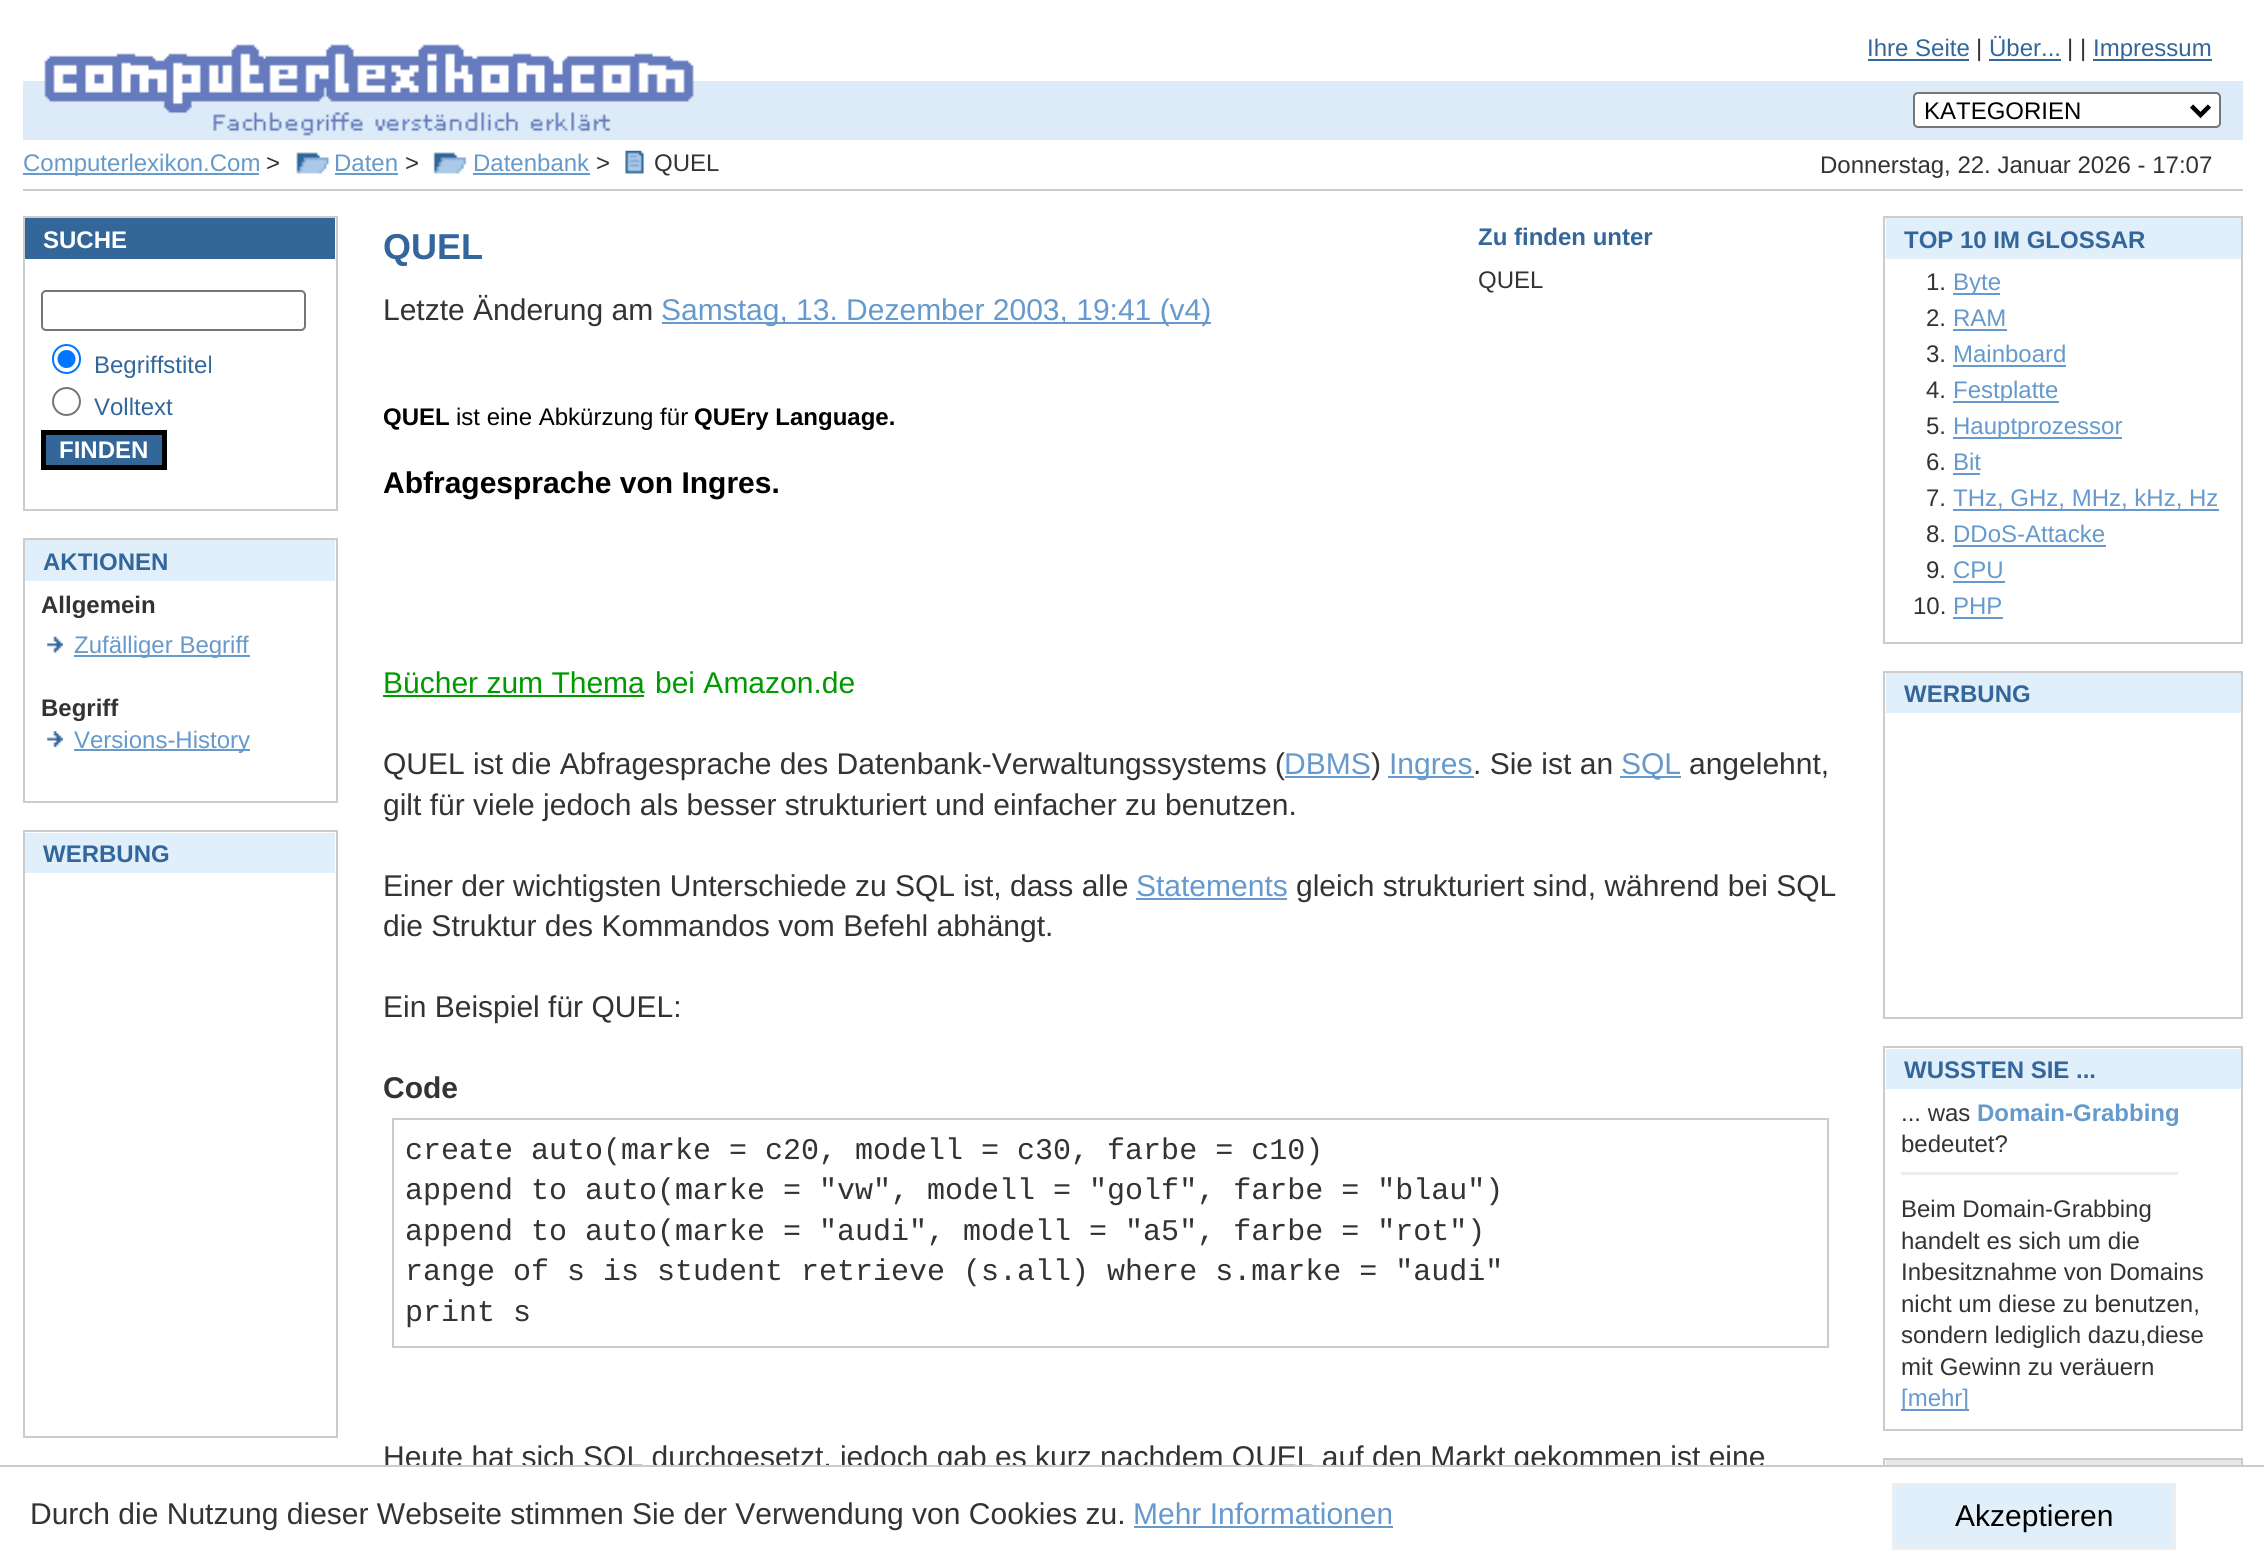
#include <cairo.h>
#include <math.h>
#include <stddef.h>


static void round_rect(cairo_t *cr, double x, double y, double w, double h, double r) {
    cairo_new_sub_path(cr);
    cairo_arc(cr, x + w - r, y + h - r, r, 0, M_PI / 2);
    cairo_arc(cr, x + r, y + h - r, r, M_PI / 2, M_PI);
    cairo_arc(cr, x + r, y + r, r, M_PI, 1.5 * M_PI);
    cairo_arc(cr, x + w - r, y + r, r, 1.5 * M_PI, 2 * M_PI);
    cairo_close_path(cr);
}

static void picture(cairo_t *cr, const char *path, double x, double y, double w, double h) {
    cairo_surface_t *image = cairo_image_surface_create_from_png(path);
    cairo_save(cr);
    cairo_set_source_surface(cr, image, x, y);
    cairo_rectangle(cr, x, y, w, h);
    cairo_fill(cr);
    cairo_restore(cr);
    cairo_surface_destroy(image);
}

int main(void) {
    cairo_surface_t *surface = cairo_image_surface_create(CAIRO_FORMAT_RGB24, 2264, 1555);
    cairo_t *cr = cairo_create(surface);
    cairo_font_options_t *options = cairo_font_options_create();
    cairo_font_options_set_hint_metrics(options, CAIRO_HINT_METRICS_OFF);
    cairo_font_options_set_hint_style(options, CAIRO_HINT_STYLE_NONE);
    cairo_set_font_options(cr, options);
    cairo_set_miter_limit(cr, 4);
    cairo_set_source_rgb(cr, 1, 1, 1);
    cairo_paint(cr);
    cairo_set_source_rgb(cr, 0.8, 0.8, 0.8);
    cairo_rectangle(cr, 23, 189, 2220, 2);
    cairo_fill(cr);
    cairo_set_source_rgb(cr, 0.863, 0.918, 0.965);
    cairo_rectangle(cr, 23, 81, 2220, 59);
    cairo_fill(cr);
    picture(cr, "img1.png", 44, 44, 650, 92);
    cairo_select_font_face(cr, "Liberation Sans", CAIRO_FONT_SLANT_NORMAL, CAIRO_FONT_WEIGHT_NORMAL);
    cairo_set_font_size(cr, 24);
    cairo_set_source_rgb(cr, 0.2, 0.4, 0.608);
    cairo_move_to(cr, 1867, 56);
    cairo_show_text(cr, "Ihre Seite");
    cairo_rectangle(cr, 1868, 59, 101, 2);
    cairo_fill(cr);
    cairo_set_source_rgb(cr, 0.2, 0.2, 0.2);
    cairo_move_to(cr, 1976, 56);
    cairo_show_text(cr, "|");
    cairo_set_source_rgb(cr, 0.2, 0.4, 0.608);
    cairo_move_to(cr, 1989, 56);
    cairo_show_text(cr, "Über...");
    cairo_rectangle(cr, 1989, 59, 72, 2);
    cairo_fill(cr);
    cairo_set_source_rgb(cr, 0.2, 0.2, 0.2);
    cairo_move_to(cr, 2067, 56);
    cairo_show_text(cr, "| |");
    cairo_set_source_rgb(cr, 0.2, 0.4, 0.608);
    cairo_rectangle(cr, 2093, 59, 119, 2);
    cairo_fill(cr);
    cairo_move_to(cr, 2093, 56);
    cairo_show_text(cr, "Impressum");
    cairo_set_source_rgb(cr, 1, 1, 1);
    round_rect(cr, 1914, 93, 306, 34, 4);
    cairo_fill_preserve(cr);
    cairo_set_source_rgb(cr, 0.463, 0.463, 0.463);
    cairo_stroke(cr);
    cairo_new_path(cr);
    cairo_move_to(cr, 2191.5, 106);
    cairo_line_to(cr, 2200.5, 115);
    cairo_line_to(cr, 2209.5, 106);
    cairo_set_source_rgb(cr, 0, 0, 0);
    cairo_set_line_width(cr, 4.5);
    cairo_stroke(cr);
    cairo_move_to(cr, 1924, 119);
    cairo_show_text(cr, "KATEGORIEN");
    cairo_set_source_rgb(cr, 0.4, 0.6, 0.8);
    cairo_rectangle(cr, 23, 173, 236, 2);
    cairo_fill(cr);
    cairo_move_to(cr, 23, 171);
    cairo_show_text(cr, "Computerlexikon.Com");
    cairo_set_source_rgb(cr, 0.2, 0.2, 0.2);
    cairo_move_to(cr, 266, 171);
    cairo_show_text(cr, ">");
    picture(cr, "img2.png", 296, 152, 34, 22);
    cairo_set_source_rgb(cr, 0.4, 0.6, 0.8);
    cairo_move_to(cr, 334, 171);
    cairo_show_text(cr, "Daten");
    cairo_rectangle(cr, 335, 173, 63, 2);
    cairo_fill(cr);
    cairo_set_source_rgb(cr, 0.2, 0.2, 0.2);
    cairo_move_to(cr, 405, 171);
    cairo_show_text(cr, ">");
    picture(cr, "img3.png", 433, 152, 34, 22);
    cairo_set_source_rgb(cr, 0.4, 0.6, 0.8);
    cairo_move_to(cr, 473, 171);
    cairo_show_text(cr, "Datenbank");
    cairo_rectangle(cr, 473, 173, 117, 2);
    cairo_fill(cr);
    cairo_set_source_rgb(cr, 0.2, 0.2, 0.2);
    cairo_move_to(cr, 596, 171);
    cairo_show_text(cr, ">");
    picture(cr, "img4.png", 625, 150, 20, 24);
    cairo_move_to(cr, 654, 171);
    cairo_show_text(cr, "QUEL");
    cairo_move_to(cr, 1820, 173);
    cairo_show_text(cr, "Donnerstag, 22. Januar 2026 - 17:07");
    cairo_rectangle(cr, 24, 217, 313, 293);
    cairo_set_source_rgb(cr, 0.8, 0.8, 0.8);
    cairo_set_line_width(cr, 2);
    cairo_stroke(cr);
    cairo_set_source_rgb(cr, 0.2, 0.4, 0.6);
    cairo_rectangle(cr, 25, 218, 310, 41);
    cairo_fill(cr);
    cairo_select_font_face(cr, "Liberation Sans", CAIRO_FONT_SLANT_NORMAL, CAIRO_FONT_WEIGHT_BOLD);
    cairo_set_source_rgb(cr, 1, 1, 1);
    cairo_move_to(cr, 43, 248);
    cairo_show_text(cr, "SUCHE");
    round_rect(cr, 42, 291, 263, 39, 4);
    cairo_set_source_rgb(cr, 0.463, 0.463, 0.463);
    cairo_stroke(cr);
    round_rect(cr, 53, 345, 27, 28, 13.5);
    cairo_set_source_rgb(cr, 0, 0.459, 1);
    cairo_stroke(cr);
    cairo_arc(cr, 66.5, 359, 9, 0, 2 * M_PI);
    cairo_fill(cr);
    cairo_select_font_face(cr, "Liberation Sans", CAIRO_FONT_SLANT_NORMAL, CAIRO_FONT_WEIGHT_NORMAL);
    cairo_set_source_rgb(cr, 0.2, 0.4, 0.608);
    cairo_move_to(cr, 94, 373);
    cairo_show_text(cr, "Begriffstitel");
    cairo_new_path(cr);
    cairo_arc(cr, 66.5, 401.5, 13.5, 0, 2 * M_PI);
    cairo_set_source_rgb(cr, 0.463, 0.463, 0.463);
    cairo_stroke(cr);
    cairo_set_source_rgb(cr, 0.2, 0.4, 0.608);
    cairo_move_to(cr, 94, 415);
    cairo_show_text(cr, "Volltext");
    cairo_set_source_rgb(cr, 0.2, 0.4, 0.6);
    cairo_rectangle(cr, 43.5, 432.5, 121, 35);
    cairo_fill_preserve(cr);
    cairo_set_source_rgb(cr, 0, 0, 0);
    cairo_set_line_width(cr, 5);
    cairo_stroke(cr);
    cairo_select_font_face(cr, "Liberation Sans", CAIRO_FONT_SLANT_NORMAL, CAIRO_FONT_WEIGHT_BOLD);
    cairo_set_source_rgb(cr, 1, 1, 1);
    cairo_move_to(cr, 59, 458);
    cairo_show_text(cr, "FINDEN");
    cairo_rectangle(cr, 24, 539, 313, 263);
    cairo_set_source_rgb(cr, 0.8, 0.8, 0.8);
    cairo_set_line_width(cr, 2);
    cairo_stroke(cr);
    cairo_set_source_rgb(cr, 0.882, 0.937, 0.98);
    cairo_rectangle(cr, 25, 540, 310, 41);
    cairo_fill(cr);
    cairo_set_source_rgb(cr, 0.2, 0.4, 0.608);
    cairo_move_to(cr, 43, 570);
    cairo_show_text(cr, "AKTIONEN");
    cairo_set_source_rgb(cr, 0.2, 0.2, 0.2);
    cairo_move_to(cr, 41, 613);
    cairo_show_text(cr, "Allgemein");
    picture(cr, "img5.png", 47, 636, 16, 17);
    cairo_set_source_rgb(cr, 0.4, 0.6, 0.8);
    cairo_rectangle(cr, 74, 655, 176, 2);
    cairo_fill(cr);
    cairo_select_font_face(cr, "Liberation Sans", CAIRO_FONT_SLANT_NORMAL, CAIRO_FONT_WEIGHT_NORMAL);
    cairo_move_to(cr, 74, 653);
    cairo_show_text(cr, "Zufälliger Begriff");
    cairo_select_font_face(cr, "Liberation Sans", CAIRO_FONT_SLANT_NORMAL, CAIRO_FONT_WEIGHT_BOLD);
    cairo_set_source_rgb(cr, 0.2, 0.2, 0.2);
    cairo_move_to(cr, 41, 716);
    cairo_show_text(cr, "Begriff");
    picture(cr, "img6.png", 47, 731, 16, 16);
    cairo_set_source_rgb(cr, 0.4, 0.6, 0.8);
    cairo_rectangle(cr, 74, 749, 176, 2);
    cairo_fill(cr);
    cairo_select_font_face(cr, "Liberation Sans", CAIRO_FONT_SLANT_NORMAL, CAIRO_FONT_WEIGHT_NORMAL);
    cairo_move_to(cr, 74, 748);
    cairo_show_text(cr, "Versions-History");
    cairo_rectangle(cr, 24, 831, 313, 606);
    cairo_set_source_rgb(cr, 0.8, 0.8, 0.8);
    cairo_stroke(cr);
    cairo_set_source_rgb(cr, 0.882, 0.937, 0.98);
    cairo_rectangle(cr, 25, 833, 310, 40);
    cairo_fill(cr);
    cairo_select_font_face(cr, "Liberation Sans", CAIRO_FONT_SLANT_NORMAL, CAIRO_FONT_WEIGHT_BOLD);
    cairo_set_source_rgb(cr, 0.2, 0.4, 0.608);
    cairo_move_to(cr, 43, 862);
    cairo_show_text(cr, "WERBUNG");
    cairo_set_font_size(cr, 36);
    cairo_move_to(cr, 383, 259);
    cairo_show_text(cr, "QUEL");
    cairo_set_font_size(cr, 24);
    cairo_move_to(cr, 1478, 245);
    cairo_show_text(cr, "Zu finden unter");
    cairo_select_font_face(cr, "Liberation Sans", CAIRO_FONT_SLANT_NORMAL, CAIRO_FONT_WEIGHT_NORMAL);
    cairo_set_source_rgb(cr, 0.2, 0.2, 0.2);
    cairo_move_to(cr, 1478, 288);
    cairo_show_text(cr, "QUEL");
    cairo_set_font_size(cr, 30);
    cairo_move_to(cr, 383, 320);
    cairo_show_text(cr, "Letzte Änderung am");
    cairo_set_source_rgb(cr, 0.4, 0.6, 0.8);
    cairo_rectangle(cr, 662, 322, 549, 2);
    cairo_fill(cr);
    cairo_move_to(cr, 661, 320);
    cairo_show_text(cr, "Samstag, 13. Dezember 2003, 19:41 (v4)");
    cairo_select_font_face(cr, "Liberation Sans", CAIRO_FONT_SLANT_NORMAL, CAIRO_FONT_WEIGHT_BOLD);
    cairo_set_font_size(cr, 24);
    cairo_set_source_rgb(cr, 0, 0, 0);
    cairo_move_to(cr, 383, 425);
    cairo_show_text(cr, "QUEL");
    cairo_select_font_face(cr, "Liberation Sans", CAIRO_FONT_SLANT_NORMAL, CAIRO_FONT_WEIGHT_NORMAL);
    cairo_move_to(cr, 456, 425);
    cairo_show_text(cr, "ist eine Abkürzung für");
    cairo_select_font_face(cr, "Liberation Sans", CAIRO_FONT_SLANT_NORMAL, CAIRO_FONT_WEIGHT_BOLD);
    cairo_move_to(cr, 694, 425);
    cairo_show_text(cr, "QUEry Language.");
    cairo_set_font_size(cr, 30);
    cairo_move_to(cr, 383, 493);
    cairo_show_text(cr, "Abfragesprache von Ingres.");
    cairo_select_font_face(cr, "Liberation Sans", CAIRO_FONT_SLANT_NORMAL, CAIRO_FONT_WEIGHT_NORMAL);
    cairo_set_source_rgb(cr, 0, 0.6, 0);
    cairo_move_to(cr, 383, 693);
    cairo_show_text(cr, "Bücher zum Thema");
    cairo_rectangle(cr, 383, 695, 261, 2);
    cairo_fill(cr);
    cairo_move_to(cr, 655, 693);
    cairo_show_text(cr, "bei Amazon.de");
    cairo_set_source_rgb(cr, 0.2, 0.2, 0.2);
    cairo_move_to(cr, 383, 774);
    cairo_show_text(cr, "QUEL ist die Abfragesprache des Datenbank-Verwaltungssystems (");
    cairo_set_source_rgb(cr, 0.4, 0.6, 0.8);
    cairo_move_to(cr, 1284, 774);
    cairo_show_text(cr, "DBMS");
    cairo_rectangle(cr, 1285, 776, 85, 2);
    cairo_fill(cr);
    cairo_set_source_rgb(cr, 0.2, 0.2, 0.2);
    cairo_move_to(cr, 1371, 774);
    cairo_show_text(cr, ")");
    cairo_set_source_rgb(cr, 0.4, 0.6, 0.8);
    cairo_rectangle(cr, 1388, 776, 86, 2);
    cairo_fill(cr);
    cairo_move_to(cr, 1389, 774);
    cairo_show_text(cr, "Ingres");
    cairo_set_source_rgb(cr, 0.2, 0.2, 0.2);
    cairo_move_to(cr, 1473, 774);
    cairo_show_text(cr, ". Sie ist an");
    cairo_set_source_rgb(cr, 0.4, 0.6, 0.8);
    cairo_rectangle(cr, 1620, 776, 61, 2);
    cairo_fill(cr);
    cairo_move_to(cr, 1621, 774);
    cairo_show_text(cr, "SQL");
    cairo_set_source_rgb(cr, 0.2, 0.2, 0.2);
    cairo_move_to(cr, 1689, 774);
    cairo_show_text(cr, "angelehnt,");
    cairo_move_to(cr, 383, 815);
    cairo_show_text(cr, "gilt für viele jedoch als besser strukturiert und einfacher zu benutzen.");
    cairo_move_to(cr, 383, 896);
    cairo_show_text(cr, "Einer der wichtigsten Unterschiede zu SQL ist, dass alle");
    cairo_set_source_rgb(cr, 0.4, 0.6, 0.8);
    cairo_move_to(cr, 1136, 896);
    cairo_show_text(cr, "Statements");
    cairo_rectangle(cr, 1136, 898, 151, 2);
    cairo_fill(cr);
    cairo_set_source_rgb(cr, 0.2, 0.2, 0.2);
    cairo_move_to(cr, 1296, 896);
    cairo_show_text(cr, "gleich strukturiert sind, während bei SQL");
    cairo_move_to(cr, 383, 936);
    cairo_show_text(cr, "die Struktur des Kommandos vom Befehl abhängt.");
    cairo_move_to(cr, 383, 1017);
    cairo_show_text(cr, "Ein Beispiel für QUEL:");
    cairo_select_font_face(cr, "Liberation Sans", CAIRO_FONT_SLANT_NORMAL, CAIRO_FONT_WEIGHT_BOLD);
    cairo_move_to(cr, 383, 1098);
    cairo_show_text(cr, "Code");
    cairo_rectangle(cr, 393, 1119, 1435, 228);
    cairo_set_source_rgb(cr, 0.8, 0.8, 0.8);
    cairo_stroke(cr);
    cairo_select_font_face(cr, "Liberation Mono", CAIRO_FONT_SLANT_NORMAL, CAIRO_FONT_WEIGHT_NORMAL);
    cairo_set_source_rgb(cr, 0.2, 0.2, 0.2);
    cairo_move_to(cr, 405, 1159);
    cairo_show_text(cr, "create auto(marke = c20, modell = c30, farbe = c10)");
    cairo_move_to(cr, 405, 1199);
    cairo_show_text(cr, "append to auto(marke = \"vw\", modell = \"golf\", farbe = \"blau\")");
    cairo_move_to(cr, 405, 1240);
    cairo_show_text(cr, "append to auto(marke = \"audi\", modell = \"a5\", farbe = \"rot\")");
    cairo_move_to(cr, 405, 1280);
    cairo_show_text(cr, "range of s is student retrieve (s.all) where s.marke = \"audi\"");
    cairo_move_to(cr, 405, 1321);
    cairo_show_text(cr, "print s");
    cairo_select_font_face(cr, "Liberation Sans", CAIRO_FONT_SLANT_NORMAL, CAIRO_FONT_WEIGHT_NORMAL);
    cairo_move_to(cr, 383, 1467);
    cairo_show_text(cr, "Heute hat sich SQL durchgesetzt, jedoch gab es kurz nachdem QUEL auf den Markt gekommen ist eine");
    cairo_rectangle(cr, 1884, 217, 358, 426);
    cairo_set_source_rgb(cr, 0.8, 0.8, 0.8);
    cairo_stroke(cr);
    cairo_set_source_rgb(cr, 0.882, 0.937, 0.98);
    cairo_rectangle(cr, 1886, 218, 355, 41);
    cairo_fill(cr);
    cairo_select_font_face(cr, "Liberation Sans", CAIRO_FONT_SLANT_NORMAL, CAIRO_FONT_WEIGHT_BOLD);
    cairo_set_font_size(cr, 24);
    cairo_set_source_rgb(cr, 0.2, 0.4, 0.608);
    cairo_move_to(cr, 1904, 248);
    cairo_show_text(cr, "TOP 10 IM GLOSSAR");
    cairo_select_font_face(cr, "Liberation Sans", CAIRO_FONT_SLANT_NORMAL, CAIRO_FONT_WEIGHT_NORMAL);
    cairo_set_source_rgb(cr, 0.2, 0.2, 0.2);
    cairo_move_to(cr, 1926, 290);
    cairo_show_text(cr, "1.");
    cairo_set_source_rgb(cr, 0.4, 0.6, 0.8);
    cairo_rectangle(cr, 1953, 293, 47, 2);
    cairo_fill(cr);
    cairo_move_to(cr, 1953, 290);
    cairo_show_text(cr, "Byte");
    cairo_set_source_rgb(cr, 0.2, 0.2, 0.2);
    cairo_move_to(cr, 1926, 326);
    cairo_show_text(cr, "2.");
    cairo_set_source_rgb(cr, 0.4, 0.6, 0.8);
    cairo_move_to(cr, 1953, 326);
    cairo_show_text(cr, "RAM");
    cairo_rectangle(cr, 1953, 329, 54, 2);
    cairo_fill(cr);
    cairo_set_source_rgb(cr, 0.2, 0.2, 0.2);
    cairo_move_to(cr, 1926, 362);
    cairo_show_text(cr, "3.");
    cairo_set_source_rgb(cr, 0.4, 0.6, 0.8);
    cairo_move_to(cr, 1953, 362);
    cairo_show_text(cr, "Mainboard");
    cairo_rectangle(cr, 1953, 365, 113, 2);
    cairo_fill(cr);
    cairo_set_source_rgb(cr, 0.2, 0.2, 0.2);
    cairo_move_to(cr, 1926, 398);
    cairo_show_text(cr, "4.");
    cairo_set_source_rgb(cr, 0.4, 0.6, 0.8);
    cairo_rectangle(cr, 1953, 401, 106, 2);
    cairo_fill(cr);
    cairo_move_to(cr, 1953, 398);
    cairo_show_text(cr, "Festplatte");
    cairo_set_source_rgb(cr, 0.2, 0.2, 0.2);
    cairo_move_to(cr, 1926, 434);
    cairo_show_text(cr, "5.");
    cairo_set_source_rgb(cr, 0.4, 0.6, 0.8);
    cairo_rectangle(cr, 1953, 437, 169, 2);
    cairo_fill(cr);
    cairo_move_to(cr, 1953, 434);
    cairo_show_text(cr, "Hauptprozessor");
    cairo_set_source_rgb(cr, 0.2, 0.2, 0.2);
    cairo_move_to(cr, 1926, 470);
    cairo_show_text(cr, "6.");
    cairo_set_source_rgb(cr, 0.4, 0.6, 0.8);
    cairo_move_to(cr, 1953, 470);
    cairo_show_text(cr, "Bit");
    cairo_rectangle(cr, 1953, 473, 27, 2);
    cairo_fill(cr);
    cairo_set_source_rgb(cr, 0.2, 0.2, 0.2);
    cairo_move_to(cr, 1926, 506);
    cairo_show_text(cr, "7.");
    cairo_set_source_rgb(cr, 0.4, 0.6, 0.8);
    cairo_rectangle(cr, 1953, 509, 266, 2);
    cairo_fill(cr);
    cairo_move_to(cr, 1953, 506);
    cairo_show_text(cr, "THz, GHz, MHz, kHz, Hz");
    cairo_set_source_rgb(cr, 0.2, 0.2, 0.2);
    cairo_move_to(cr, 1926, 542);
    cairo_show_text(cr, "8.");
    cairo_set_source_rgb(cr, 0.4, 0.6, 0.8);
    cairo_move_to(cr, 1953, 542);
    cairo_show_text(cr, "DDoS-Attacke");
    cairo_rectangle(cr, 1953, 545, 153, 2);
    cairo_fill(cr);
    cairo_set_source_rgb(cr, 0.2, 0.2, 0.2);
    cairo_move_to(cr, 1926, 578);
    cairo_show_text(cr, "9.");
    cairo_set_source_rgb(cr, 0.4, 0.6, 0.8);
    cairo_move_to(cr, 1953, 578);
    cairo_show_text(cr, "CPU");
    cairo_rectangle(cr, 1953, 581, 52, 2);
    cairo_fill(cr);
    cairo_set_source_rgb(cr, 0.2, 0.2, 0.2);
    cairo_move_to(cr, 1913, 614);
    cairo_show_text(cr, "10.");
    cairo_set_source_rgb(cr, 0.4, 0.6, 0.8);
    cairo_move_to(cr, 1953, 614);
    cairo_show_text(cr, "PHP");
    cairo_rectangle(cr, 1953, 617, 50, 2);
    cairo_fill(cr);
    cairo_rectangle(cr, 1884, 672, 358, 346);
    cairo_set_source_rgb(cr, 0.8, 0.8, 0.8);
    cairo_stroke(cr);
    cairo_set_source_rgb(cr, 0.882, 0.937, 0.98);
    cairo_rectangle(cr, 1886, 673, 355, 40);
    cairo_fill(cr);
    cairo_select_font_face(cr, "Liberation Sans", CAIRO_FONT_SLANT_NORMAL, CAIRO_FONT_WEIGHT_BOLD);
    cairo_set_source_rgb(cr, 0.2, 0.4, 0.608);
    cairo_move_to(cr, 1904, 702);
    cairo_show_text(cr, "WERBUNG");
    cairo_rectangle(cr, 1884, 1047, 358, 383);
    cairo_set_source_rgb(cr, 0.8, 0.8, 0.8);
    cairo_stroke(cr);
    cairo_set_source_rgb(cr, 0.882, 0.937, 0.98);
    cairo_rectangle(cr, 1886, 1049, 355, 40);
    cairo_fill(cr);
    cairo_set_source_rgb(cr, 0.2, 0.4, 0.608);
    cairo_move_to(cr, 1904, 1078);
    cairo_show_text(cr, "WUSSTEN SIE ...");
    cairo_select_font_face(cr, "Liberation Sans", CAIRO_FONT_SLANT_NORMAL, CAIRO_FONT_WEIGHT_NORMAL);
    cairo_set_source_rgb(cr, 0.2, 0.2, 0.2);
    cairo_move_to(cr, 1901, 1121);
    cairo_show_text(cr, "... was");
    cairo_select_font_face(cr, "Liberation Sans", CAIRO_FONT_SLANT_NORMAL, CAIRO_FONT_WEIGHT_BOLD);
    cairo_set_source_rgb(cr, 0.4, 0.6, 0.8);
    cairo_move_to(cr, 1977, 1121);
    cairo_show_text(cr, "Domain-Grabbing");
    cairo_select_font_face(cr, "Liberation Sans", CAIRO_FONT_SLANT_NORMAL, CAIRO_FONT_WEIGHT_NORMAL);
    cairo_set_source_rgb(cr, 0.2, 0.2, 0.2);
    cairo_move_to(cr, 1901, 1152);
    cairo_show_text(cr, "bedeutet?");
    cairo_set_source_rgb(cr, 0.922, 0.922, 0.922);
    cairo_rectangle(cr, 1901, 1172, 277, 3);
    cairo_fill(cr);
    cairo_set_source_rgb(cr, 0.2, 0.2, 0.2);
    cairo_move_to(cr, 1901, 1217);
    cairo_show_text(cr, "Beim Domain-Grabbing");
    cairo_move_to(cr, 1901, 1249);
    cairo_show_text(cr, "handelt es sich um die");
    cairo_move_to(cr, 1901, 1280);
    cairo_show_text(cr, "Inbesitznahme von Domains");
    cairo_move_to(cr, 1901, 1312);
    cairo_show_text(cr, "nicht um diese zu benutzen,");
    cairo_move_to(cr, 1901, 1343);
    cairo_show_text(cr, "sondern lediglich dazu,diese");
    cairo_move_to(cr, 1901, 1375);
    cairo_show_text(cr, "mit Gewinn zu veräuern");
    cairo_set_source_rgb(cr, 0.4, 0.6, 0.8);
    cairo_rectangle(cr, 1901, 1409, 68, 2);
    cairo_fill(cr);
    cairo_move_to(cr, 1901, 1406);
    cairo_show_text(cr, "[mehr]");
    cairo_rectangle(cr, 1884, 1459, 358, 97);
    cairo_set_source_rgb(cr, 0.8, 0.8, 0.8);
    cairo_stroke(cr);
    cairo_set_source_rgb(cr, 0.906, 0.906, 0.906);
    cairo_rectangle(cr, 1886, 1460, 355, 5);
    cairo_fill(cr);
    cairo_set_source_rgb(cr, 1, 1, 1);
    cairo_rectangle(cr, 410, 1467, 1833, 88);
    cairo_fill(cr);
    cairo_set_source_rgb(cr, 0.8, 0.8, 0.8);
    cairo_rectangle(cr, 0, 1465, 2264, 2);
    cairo_fill(cr);
    cairo_set_font_size(cr, 30);
    cairo_set_source_rgb(cr, 0.2, 0.2, 0.2);
    cairo_move_to(cr, 30, 1524);
    cairo_show_text(cr, "Durch die Nutzung dieser Webseite stimmen Sie der Verwendung von Cookies zu.");
    cairo_set_source_rgb(cr, 0.4, 0.6, 0.8);
    cairo_move_to(cr, 1133, 1524);
    cairo_show_text(cr, "Mehr Informationen");
    cairo_rectangle(cr, 1134, 1526, 259, 2);
    cairo_fill(cr);
    cairo_set_source_rgb(cr, 0.882, 0.937, 0.98);
    cairo_rectangle(cr, 1893, 1484, 282, 65);
    cairo_fill_preserve(cr);
    cairo_set_source_rgb(cr, 0.933, 0.933, 0.933);
    cairo_stroke(cr);
    cairo_set_source_rgb(cr, 0, 0, 0);
    cairo_move_to(cr, 1955, 1526);
    cairo_show_text(cr, "Akzeptieren");
    cairo_surface_write_to_png(surface, "page.png");
    cairo_font_options_destroy(options);
    cairo_destroy(cr);
    cairo_surface_destroy(surface);
    return 0;
}
